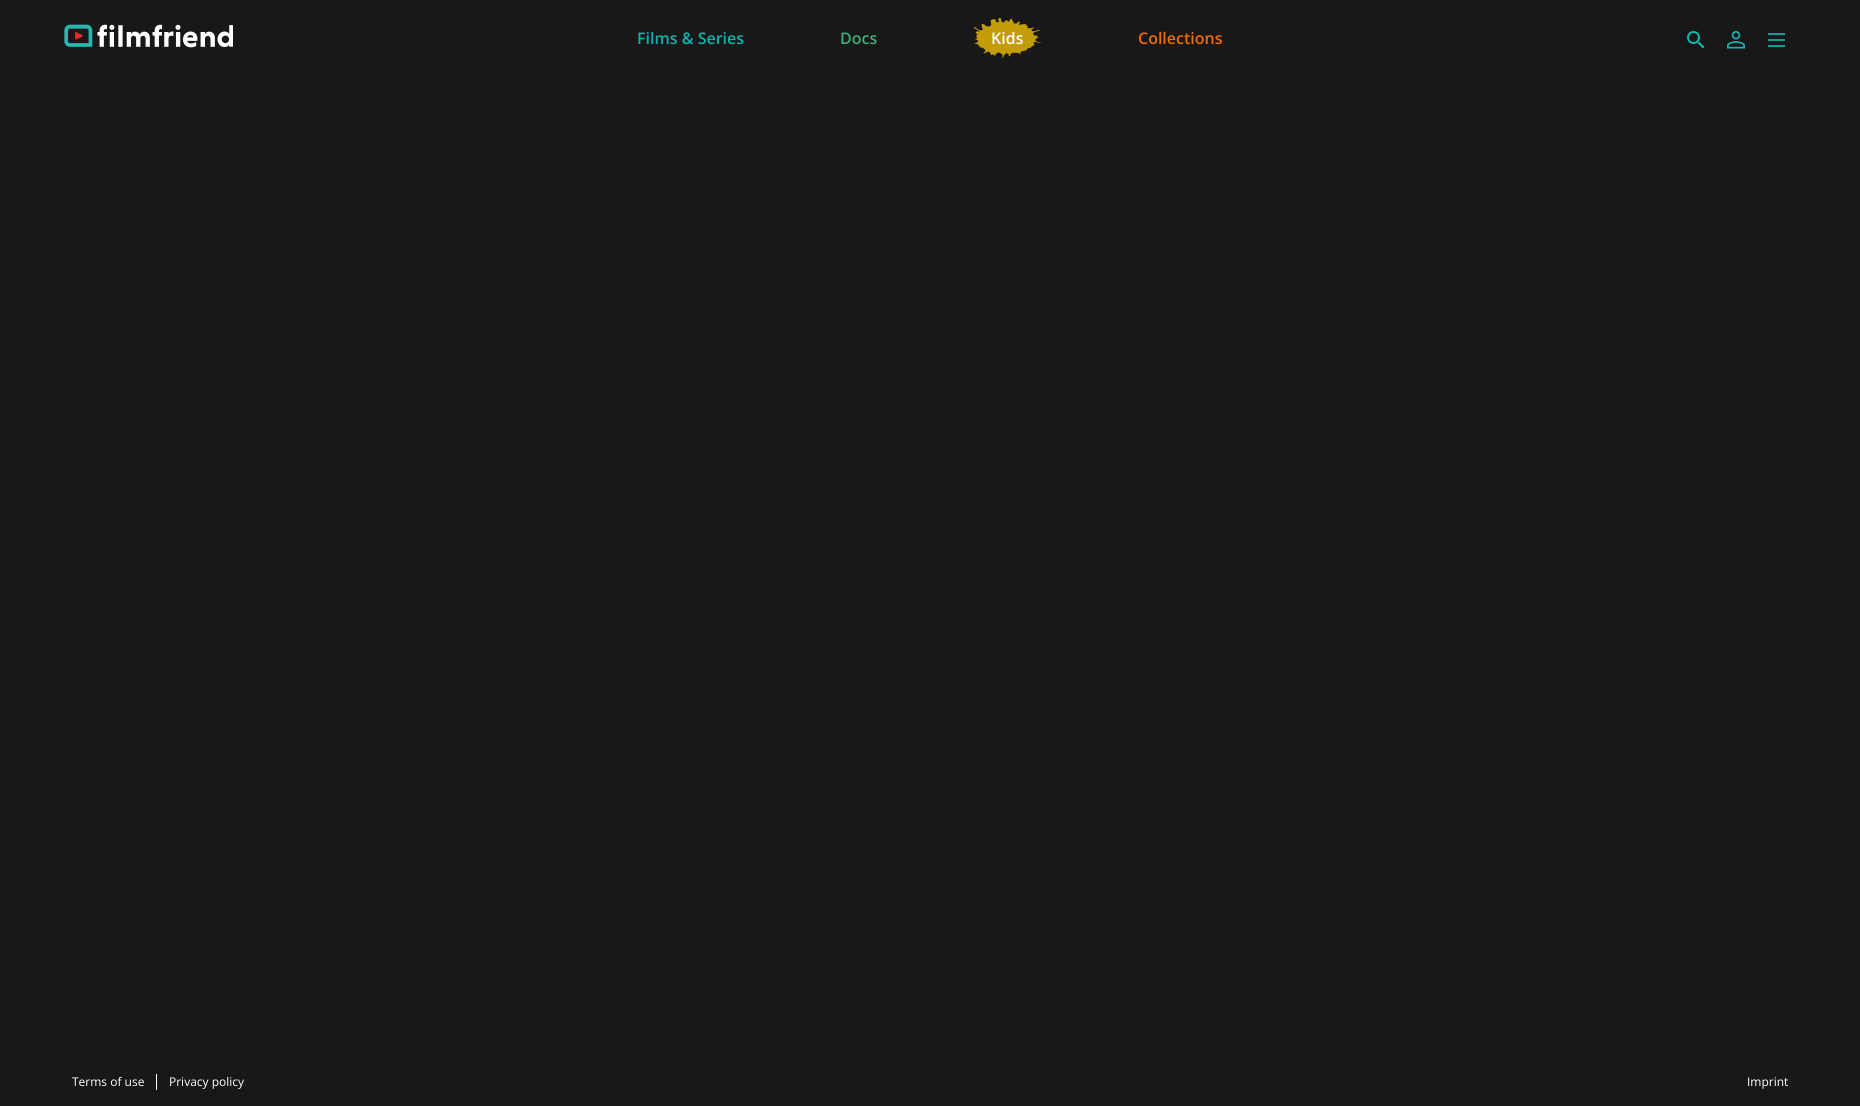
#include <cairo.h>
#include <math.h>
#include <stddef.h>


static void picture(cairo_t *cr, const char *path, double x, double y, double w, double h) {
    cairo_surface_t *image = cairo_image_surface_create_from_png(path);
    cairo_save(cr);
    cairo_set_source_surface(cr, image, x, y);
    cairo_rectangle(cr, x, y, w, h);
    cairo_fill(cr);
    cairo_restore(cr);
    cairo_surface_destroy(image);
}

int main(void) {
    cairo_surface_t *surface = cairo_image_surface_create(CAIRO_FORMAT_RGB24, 1860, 1106);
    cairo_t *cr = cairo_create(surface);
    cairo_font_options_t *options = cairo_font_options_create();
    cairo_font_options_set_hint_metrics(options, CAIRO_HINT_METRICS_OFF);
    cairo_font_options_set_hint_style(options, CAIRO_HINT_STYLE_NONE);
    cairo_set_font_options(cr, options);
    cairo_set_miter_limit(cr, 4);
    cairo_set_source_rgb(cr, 0.094, 0.094, 0.094);
    cairo_paint(cr);
    picture(cr, "img1.png", 64, 24, 169, 24);
    cairo_select_font_face(cr, "Open Sans SemiBold", CAIRO_FONT_SLANT_NORMAL, CAIRO_FONT_WEIGHT_NORMAL);
    cairo_set_font_size(cr, 16);
    cairo_set_source_rgb(cr, 0.051, 0.702, 0.686);
    cairo_move_to(cr, 637, 44);
    cairo_show_text(cr, "Films & Series");
    cairo_set_source_rgb(cr, 0.243, 0.69, 0.486);
    cairo_move_to(cr, 840, 44);
    cairo_show_text(cr, "Docs");
    picture(cr, "img2.png", 973, 18, 68, 40);
    cairo_set_source_rgb(cr, 0.945, 0.42, 0);
    cairo_move_to(cr, 1138, 44);
    cairo_show_text(cr, "Collections");
    picture(cr, "img3.png", 1687, 31, 18, 18);
    picture(cr, "img4.png", 1727, 31, 18, 18);
    cairo_set_source_rgb(cr, 0.071, 0.62, 0.6);
    cairo_rectangle(cr, 1768, 33, 17, 2);
    cairo_fill(cr);
    cairo_rectangle(cr, 1768, 39, 17, 2);
    cairo_fill(cr);
    cairo_rectangle(cr, 1768, 45, 17, 2);
    cairo_fill(cr);
    cairo_select_font_face(cr, "Open Sans", CAIRO_FONT_SLANT_NORMAL, CAIRO_FONT_WEIGHT_NORMAL);
    cairo_set_font_size(cr, 12);
    cairo_set_source_rgb(cr, 1, 1, 1);
    cairo_move_to(cr, 72, 1086);
    cairo_show_text(cr, "Terms of use");
    cairo_rectangle(cr, 156, 1074, 1, 16);
    cairo_fill(cr);
    cairo_move_to(cr, 169, 1086);
    cairo_show_text(cr, "Privacy policy");
    cairo_move_to(cr, 1747, 1086);
    cairo_show_text(cr, "Imprint");
    cairo_surface_write_to_png(surface, "page.png");
    cairo_font_options_destroy(options);
    cairo_destroy(cr);
    cairo_surface_destroy(surface);
    return 0;
}
